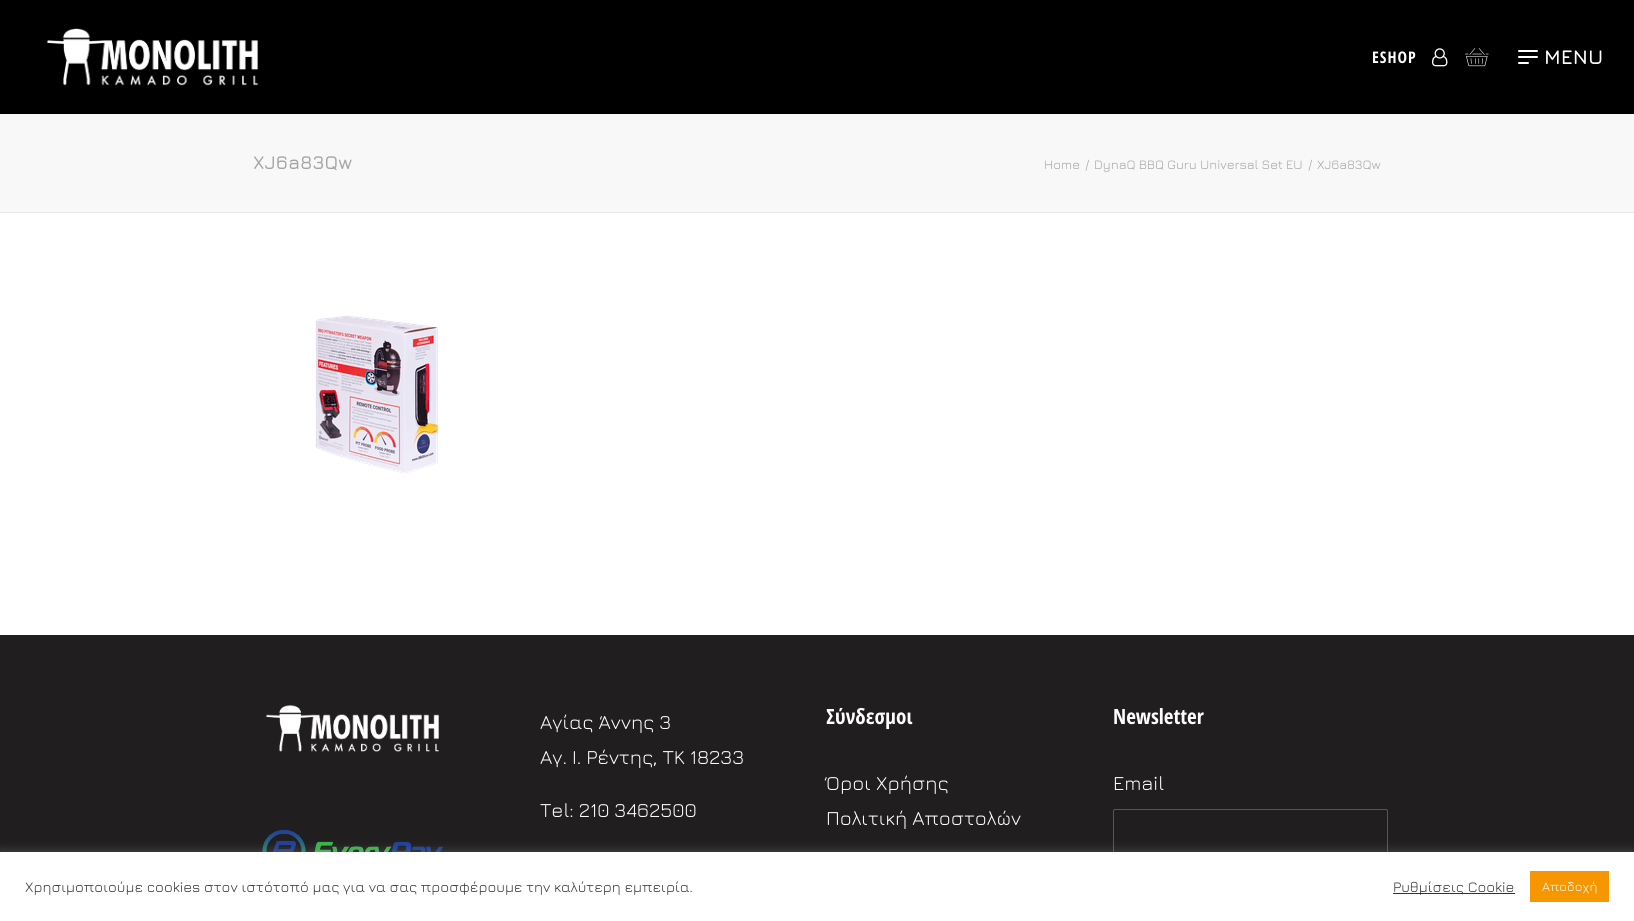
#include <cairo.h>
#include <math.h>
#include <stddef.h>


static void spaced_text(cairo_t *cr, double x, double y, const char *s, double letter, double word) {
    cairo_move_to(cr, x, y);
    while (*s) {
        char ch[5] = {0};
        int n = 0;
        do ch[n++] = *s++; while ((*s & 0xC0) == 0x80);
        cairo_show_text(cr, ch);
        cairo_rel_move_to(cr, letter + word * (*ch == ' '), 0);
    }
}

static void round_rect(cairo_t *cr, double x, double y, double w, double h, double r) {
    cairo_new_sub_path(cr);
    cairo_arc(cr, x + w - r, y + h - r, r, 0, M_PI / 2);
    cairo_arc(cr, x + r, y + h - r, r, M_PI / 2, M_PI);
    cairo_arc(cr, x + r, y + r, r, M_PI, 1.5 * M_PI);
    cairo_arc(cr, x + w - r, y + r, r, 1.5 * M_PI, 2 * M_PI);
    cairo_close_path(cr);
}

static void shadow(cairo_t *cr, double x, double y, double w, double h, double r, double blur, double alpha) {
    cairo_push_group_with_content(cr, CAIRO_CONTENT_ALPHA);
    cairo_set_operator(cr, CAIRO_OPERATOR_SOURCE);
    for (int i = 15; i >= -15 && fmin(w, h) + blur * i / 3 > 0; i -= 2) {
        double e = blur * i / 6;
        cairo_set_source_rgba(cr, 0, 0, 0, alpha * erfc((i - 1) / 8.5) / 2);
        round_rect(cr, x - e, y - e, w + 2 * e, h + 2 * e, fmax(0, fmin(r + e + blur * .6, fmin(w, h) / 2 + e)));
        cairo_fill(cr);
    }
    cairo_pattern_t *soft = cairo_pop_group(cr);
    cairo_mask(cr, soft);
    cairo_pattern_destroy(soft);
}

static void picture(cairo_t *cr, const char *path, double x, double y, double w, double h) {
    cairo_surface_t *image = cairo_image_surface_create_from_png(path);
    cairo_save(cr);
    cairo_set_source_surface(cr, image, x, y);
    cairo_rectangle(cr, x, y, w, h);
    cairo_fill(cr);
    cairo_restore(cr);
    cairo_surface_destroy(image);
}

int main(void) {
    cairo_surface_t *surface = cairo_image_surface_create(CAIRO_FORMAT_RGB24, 1634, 921);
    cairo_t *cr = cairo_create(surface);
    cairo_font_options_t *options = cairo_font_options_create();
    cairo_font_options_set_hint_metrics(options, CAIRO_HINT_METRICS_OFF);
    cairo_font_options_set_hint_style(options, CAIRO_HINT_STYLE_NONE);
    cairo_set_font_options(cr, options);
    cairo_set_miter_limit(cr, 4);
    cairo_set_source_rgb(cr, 0.125, 0.118, 0.122);
    cairo_paint(cr);
    cairo_set_source_rgb(cr, 0, 0, 0);
    cairo_rectangle(cr, 0, 0, 1634, 114);
    cairo_fill(cr);
    picture(cr, "img1.png", 47, 28, 212, 58);
    cairo_select_font_face(cr, "Open Sans Condensed", CAIRO_FONT_SLANT_NORMAL, CAIRO_FONT_WEIGHT_BOLD);
    cairo_set_font_size(cr, 16);
    cairo_set_source_rgb(cr, 1, 1, 1);
    spaced_text(cr, 1372, 63, "ESHOP", 1, 0);
    picture(cr, "img2.png", 1432, 48, 16, 19);
    picture(cr, "img3.png", 1465, 48, 24, 19);
    round_rect(cr, 1518, 56, 20, 2, 1);
    cairo_fill(cr);
    round_rect(cr, 1518, 50, 20, 2, 1);
    cairo_fill(cr);
    round_rect(cr, 1518, 62, 11, 2, 1);
    cairo_fill(cr);
    cairo_select_font_face(cr, "Jura", CAIRO_FONT_SLANT_NORMAL, CAIRO_FONT_WEIGHT_BOLD);
    cairo_set_font_size(cr, 20);
    cairo_move_to(cr, 1544, 64);
    cairo_show_text(cr, "MENU");
    cairo_set_source_rgb(cr, 0.969, 0.969, 0.969);
    cairo_rectangle(cr, 0, 114, 1634, 98);
    cairo_fill(cr);
    cairo_set_source_rgb(cr, 0.918, 0.918, 0.918);
    cairo_rectangle(cr, 0, 212, 1634, 1);
    cairo_fill(cr);
    cairo_select_font_face(cr, "Jura SemiBold", CAIRO_FONT_SLANT_NORMAL, CAIRO_FONT_WEIGHT_NORMAL);
    cairo_set_font_size(cr, 19);
    cairo_set_source_rgb(cr, 0.643, 0.643, 0.643);
    cairo_move_to(cr, 253, 169);
    cairo_show_text(cr, "XJ6a83Qw");
    cairo_select_font_face(cr, "Jura", CAIRO_FONT_SLANT_NORMAL, CAIRO_FONT_WEIGHT_NORMAL);
    cairo_set_font_size(cr, 13);
    cairo_move_to(cr, 1044, 169);
    cairo_show_text(cr, "Home");
    cairo_move_to(cr, 1085, 169);
    cairo_show_text(cr, "/");
    cairo_move_to(cr, 1094, 169);
    cairo_show_text(cr, "DynaQ BBQ Guru Universal Set EU");
    cairo_move_to(cr, 1308, 169);
    cairo_show_text(cr, "/");
    cairo_move_to(cr, 1317, 169);
    cairo_show_text(cr, "XJ6a83Qw");
    cairo_set_source_rgb(cr, 1, 1, 1);
    cairo_rectangle(cr, 0, 213, 1634, 422);
    cairo_fill(cr);
    picture(cr, "img4.png", 315, 315, 123, 159);
    picture(cr, "img5.png", 266, 705, 173, 47);
    picture(cr, "img6.png", 262, 829, 182, 23);
    cairo_set_font_size(cr, 20);
    cairo_move_to(cr, 540, 729);
    cairo_show_text(cr, "Αγίας Άννης 3");
    cairo_move_to(cr, 540, 764);
    cairo_show_text(cr, "Αγ. Ι. Ρέντης, ΤΚ 18233");
    cairo_move_to(cr, 540, 817);
    cairo_show_text(cr, "Tel: 210 3462500");
    cairo_select_font_face(cr, "Open Sans Condensed", CAIRO_FONT_SLANT_NORMAL, CAIRO_FONT_WEIGHT_BOLD);
    cairo_set_font_size(cr, 21);
    cairo_move_to(cr, 826, 724);
    cairo_show_text(cr, "Σύνδεσμοι");
    cairo_select_font_face(cr, "Jura", CAIRO_FONT_SLANT_NORMAL, CAIRO_FONT_WEIGHT_NORMAL);
    cairo_set_font_size(cr, 20);
    cairo_move_to(cr, 826, 790);
    cairo_show_text(cr, "Όροι Χρήσης");
    cairo_move_to(cr, 826, 825);
    cairo_show_text(cr, "Πολιτική Αποστολών");
    cairo_select_font_face(cr, "Open Sans Condensed", CAIRO_FONT_SLANT_NORMAL, CAIRO_FONT_WEIGHT_BOLD);
    cairo_set_font_size(cr, 21);
    cairo_move_to(cr, 1113, 724);
    cairo_show_text(cr, "Newsletter");
    cairo_select_font_face(cr, "Jura", CAIRO_FONT_SLANT_NORMAL, CAIRO_FONT_WEIGHT_NORMAL);
    cairo_set_font_size(cr, 20);
    cairo_move_to(cr, 1113, 790);
    cairo_show_text(cr, "Email");
    round_rect(cr, 1113.5, 809.5, 274, 44, 1.5);
    cairo_set_source_rgb(cr, 0.345, 0.337, 0.341);
    cairo_set_line_width(cr, 1);
    cairo_stroke(cr);
    cairo_set_source_rgb(cr, 0.675, 0.671, 0.671);
    shadow(cr, 0, 851, 1634, 69, 0, 5, 0.3);
    cairo_set_source_rgb(cr, 1, 1, 1);
    cairo_rectangle(cr, 0, 852, 1634, 69);
    cairo_fill(cr);
    cairo_set_font_size(cr, 14.65);
    cairo_set_source_rgb(cr, 0.2, 0.2, 0.2);
    cairo_move_to(cr, 25, 892);
    cairo_show_text(cr, "Χρησιμοποιούμε cookies στον ιστότοπό μας για να σας προσφέρουμε την καλύτερη εμπειρία.");
    cairo_rectangle(cr, 1393, 893, 122, 1);
    cairo_fill(cr);
    cairo_move_to(cr, 1393, 892);
    cairo_show_text(cr, "Ρυθμίσεις Cookie");
    cairo_set_source_rgb(cr, 0.961, 0.588, 0);
    cairo_rectangle(cr, 1530, 871, 79, 31);
    cairo_fill(cr);
    cairo_set_font_size(cr, 13);
    cairo_set_source_rgb(cr, 1, 1, 1);
    cairo_move_to(cr, 1542, 891);
    cairo_show_text(cr, "Αποδοχή");
    cairo_surface_write_to_png(surface, "page.png");
    cairo_font_options_destroy(options);
    cairo_destroy(cr);
    cairo_surface_destroy(surface);
    return 0;
}
